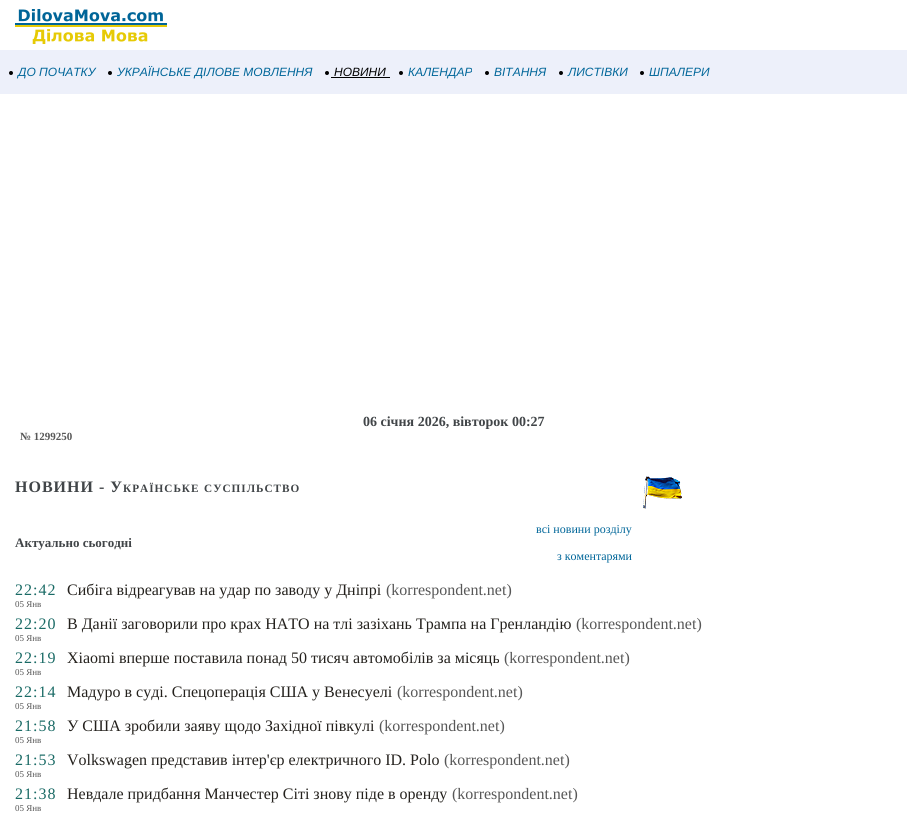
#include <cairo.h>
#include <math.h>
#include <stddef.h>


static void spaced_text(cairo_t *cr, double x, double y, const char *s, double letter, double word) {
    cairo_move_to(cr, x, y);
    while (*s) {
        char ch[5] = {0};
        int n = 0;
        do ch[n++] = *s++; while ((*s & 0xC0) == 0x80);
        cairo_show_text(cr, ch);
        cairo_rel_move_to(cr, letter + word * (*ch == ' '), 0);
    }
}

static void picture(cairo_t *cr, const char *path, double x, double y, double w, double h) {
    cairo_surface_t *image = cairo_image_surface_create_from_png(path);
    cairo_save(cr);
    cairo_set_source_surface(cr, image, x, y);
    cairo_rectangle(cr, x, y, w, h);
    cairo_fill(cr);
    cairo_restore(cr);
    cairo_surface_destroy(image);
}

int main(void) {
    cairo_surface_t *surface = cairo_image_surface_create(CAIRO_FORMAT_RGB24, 907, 819);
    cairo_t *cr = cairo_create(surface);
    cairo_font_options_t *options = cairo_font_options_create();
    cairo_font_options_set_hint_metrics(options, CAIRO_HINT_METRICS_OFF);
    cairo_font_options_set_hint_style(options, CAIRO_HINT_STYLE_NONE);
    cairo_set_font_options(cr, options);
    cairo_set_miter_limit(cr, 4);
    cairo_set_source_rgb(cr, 1, 1, 1);
    cairo_paint(cr);
    picture(cr, "img1.png", 15, 9, 152, 35);
    cairo_set_source_rgb(cr, 0.929, 0.941, 0.98);
    cairo_rectangle(cr, 0, 50, 907, 44);
    cairo_fill(cr);
    cairo_set_source_rgb(cr, 0, 0, 0);
    cairo_arc(cr, 11, 73, 2, 0, 2 * M_PI);
    cairo_fill(cr);
    cairo_select_font_face(cr, "Liberation Sans", CAIRO_FONT_SLANT_ITALIC, CAIRO_FONT_WEIGHT_NORMAL);
    cairo_set_font_size(cr, 12);
    cairo_set_source_rgb(cr, 0, 0.4, 0.6);
    cairo_move_to(cr, 18, 76);
    cairo_show_text(cr, "ДО ПОЧАТКУ");
    cairo_set_source_rgb(cr, 0, 0, 0);
    cairo_new_path(cr);
    cairo_arc(cr, 110, 73, 2, 0, 2 * M_PI);
    cairo_fill(cr);
    cairo_set_source_rgb(cr, 0, 0.4, 0.6);
    cairo_move_to(cr, 117, 76);
    cairo_show_text(cr, "УКРАЇНСЬКЕ ДІЛОВЕ МОВЛЕННЯ");
    cairo_set_source_rgb(cr, 0, 0, 0);
    cairo_new_path(cr);
    cairo_arc(cr, 327, 73, 2, 0, 2 * M_PI);
    cairo_fill(cr);
    cairo_move_to(cr, 334, 76);
    cairo_show_text(cr, "НОВИНИ");
    cairo_rectangle(cr, 331, 77, 59, 1);
    cairo_fill(cr);
    cairo_arc(cr, 401, 73, 2, 0, 2 * M_PI);
    cairo_fill(cr);
    cairo_set_source_rgb(cr, 0, 0.4, 0.6);
    cairo_move_to(cr, 408, 76);
    cairo_show_text(cr, "КАЛЕНДАР");
    cairo_set_source_rgb(cr, 0, 0, 0);
    cairo_new_path(cr);
    cairo_arc(cr, 487, 73, 2, 0, 2 * M_PI);
    cairo_fill(cr);
    cairo_set_source_rgb(cr, 0, 0.4, 0.6);
    cairo_move_to(cr, 494, 76);
    cairo_show_text(cr, "ВІТАННЯ");
    cairo_set_source_rgb(cr, 0, 0, 0);
    cairo_new_path(cr);
    cairo_arc(cr, 561, 73, 2, 0, 2 * M_PI);
    cairo_fill(cr);
    cairo_set_source_rgb(cr, 0, 0.4, 0.6);
    cairo_move_to(cr, 568, 76);
    cairo_show_text(cr, "ЛИСТІВКИ");
    cairo_set_source_rgb(cr, 0, 0, 0);
    cairo_new_path(cr);
    cairo_arc(cr, 642, 73, 2, 0, 2 * M_PI);
    cairo_fill(cr);
    cairo_set_source_rgb(cr, 0, 0.4, 0.6);
    cairo_move_to(cr, 649, 76);
    cairo_show_text(cr, "ШПАЛЕРИ");
    cairo_select_font_face(cr, "Liberation Serif", CAIRO_FONT_SLANT_NORMAL, CAIRO_FONT_WEIGHT_BOLD);
    cairo_set_font_size(cr, 14);
    cairo_set_source_rgb(cr, 0.255, 0.271, 0.282);
    cairo_move_to(cr, 363, 426);
    cairo_show_text(cr, "06 січня 2026, вівторок 00:27");
    cairo_set_font_size(cr, 11);
    cairo_set_source_rgb(cr, 0.341, 0.341, 0.341);
    cairo_move_to(cr, 20, 440);
    cairo_show_text(cr, "№ 1299250");
    cairo_set_font_size(cr, 16);
    cairo_set_source_rgb(cr, 0.255, 0.271, 0.282);
    spaced_text(cr, 15, 492, "НОВИНИ - У", 1, 0);
    cairo_set_font_size(cr, 11.25);
    spaced_text(cr, 123, 492, "КРАЇНСЬКЕ", 1, 0);
    spaced_text(cr, 204, 492, "СУСПІЛЬСТВО", 1, 0);
    picture(cr, "img2.png", 643, 476, 39, 33);
    cairo_set_font_size(cr, 13);
    cairo_move_to(cr, 15, 547);
    cairo_show_text(cr, "Актуально сьогодні");
    cairo_select_font_face(cr, "Liberation Serif", CAIRO_FONT_SLANT_NORMAL, CAIRO_FONT_WEIGHT_NORMAL);
    cairo_set_font_size(cr, 12);
    cairo_set_source_rgb(cr, 0, 0.4, 0.6);
    cairo_move_to(cr, 536, 533);
    cairo_show_text(cr, "всі новини розділу");
    cairo_move_to(cr, 557, 560);
    cairo_show_text(cr, "з коментарями");
    cairo_set_font_size(cr, 16);
    cairo_set_source_rgb(cr, 0.098, 0.416, 0.396);
    spaced_text(cr, 15, 595, "22:42", 1, 0);
    cairo_set_font_size(cr, 9);
    cairo_set_source_rgb(cr, 0.341, 0.341, 0.341);
    cairo_move_to(cr, 15, 607);
    cairo_show_text(cr, "05 Янв");
    cairo_set_font_size(cr, 16);
    cairo_set_source_rgb(cr, 0.141, 0.129, 0.114);
    cairo_move_to(cr, 67, 595);
    cairo_show_text(cr, "Сибіга відреагував на удар по заводу у Дніпрі");
    cairo_set_source_rgb(cr, 0.341, 0.341, 0.341);
    cairo_move_to(cr, 386, 595);
    cairo_show_text(cr, "(korrespondent.net)");
    cairo_set_source_rgb(cr, 0.098, 0.416, 0.396);
    spaced_text(cr, 15, 629, "22:20", 1, 0);
    cairo_set_font_size(cr, 9);
    cairo_set_source_rgb(cr, 0.341, 0.341, 0.341);
    cairo_move_to(cr, 15, 641);
    cairo_show_text(cr, "05 Янв");
    cairo_set_font_size(cr, 16);
    cairo_set_source_rgb(cr, 0.141, 0.129, 0.114);
    cairo_move_to(cr, 67, 629);
    cairo_show_text(cr, "В Данії заговорили про крах НАТО на тлі зазіхань Трампа на Гренландію");
    cairo_set_source_rgb(cr, 0.341, 0.341, 0.341);
    cairo_move_to(cr, 576, 629);
    cairo_show_text(cr, "(korrespondent.net)");
    cairo_set_source_rgb(cr, 0.098, 0.416, 0.396);
    spaced_text(cr, 15, 663, "22:19", 1, 0);
    cairo_set_font_size(cr, 9);
    cairo_set_source_rgb(cr, 0.341, 0.341, 0.341);
    cairo_move_to(cr, 15, 675);
    cairo_show_text(cr, "05 Янв");
    cairo_set_font_size(cr, 16);
    cairo_set_source_rgb(cr, 0.141, 0.129, 0.114);
    cairo_move_to(cr, 67, 663);
    cairo_show_text(cr, "Xiaomi вперше поставила понад 50 тисяч автомобілів за місяць");
    cairo_set_source_rgb(cr, 0.341, 0.341, 0.341);
    cairo_move_to(cr, 504, 663);
    cairo_show_text(cr, "(korrespondent.net)");
    cairo_set_source_rgb(cr, 0.098, 0.416, 0.396);
    spaced_text(cr, 15, 697, "22:14", 1, 0);
    cairo_set_font_size(cr, 9);
    cairo_set_source_rgb(cr, 0.341, 0.341, 0.341);
    cairo_move_to(cr, 15, 709);
    cairo_show_text(cr, "05 Янв");
    cairo_set_font_size(cr, 16);
    cairo_set_source_rgb(cr, 0.141, 0.129, 0.114);
    cairo_move_to(cr, 67, 697);
    cairo_show_text(cr, "Мадуро в суді. Спецоперація США у Венесуелі");
    cairo_set_source_rgb(cr, 0.341, 0.341, 0.341);
    cairo_move_to(cr, 397, 697);
    cairo_show_text(cr, "(korrespondent.net)");
    cairo_set_source_rgb(cr, 0.098, 0.416, 0.396);
    spaced_text(cr, 15, 731, "21:58", 1, 0);
    cairo_set_font_size(cr, 9);
    cairo_set_source_rgb(cr, 0.341, 0.341, 0.341);
    cairo_move_to(cr, 15, 743);
    cairo_show_text(cr, "05 Янв");
    cairo_set_font_size(cr, 16);
    cairo_set_source_rgb(cr, 0.141, 0.129, 0.114);
    cairo_move_to(cr, 67, 731);
    cairo_show_text(cr, "У США зробили заяву щодо Західної півкулі");
    cairo_set_source_rgb(cr, 0.341, 0.341, 0.341);
    cairo_move_to(cr, 379, 731);
    cairo_show_text(cr, "(korrespondent.net)");
    cairo_set_source_rgb(cr, 0.098, 0.416, 0.396);
    spaced_text(cr, 15, 765, "21:53", 1, 0);
    cairo_set_font_size(cr, 9);
    cairo_set_source_rgb(cr, 0.341, 0.341, 0.341);
    cairo_move_to(cr, 15, 777);
    cairo_show_text(cr, "05 Янв");
    cairo_set_font_size(cr, 16);
    cairo_set_source_rgb(cr, 0.141, 0.129, 0.114);
    cairo_move_to(cr, 67, 765);
    cairo_show_text(cr, "Volkswagen представив інтер'єр електричного ID. Polo");
    cairo_set_source_rgb(cr, 0.341, 0.341, 0.341);
    cairo_move_to(cr, 444, 765);
    cairo_show_text(cr, "(korrespondent.net)");
    cairo_set_source_rgb(cr, 0.098, 0.416, 0.396);
    spaced_text(cr, 15, 799, "21:38", 1, 0);
    cairo_set_font_size(cr, 9);
    cairo_set_source_rgb(cr, 0.341, 0.341, 0.341);
    cairo_move_to(cr, 15, 811);
    cairo_show_text(cr, "05 Янв");
    cairo_set_font_size(cr, 16);
    cairo_set_source_rgb(cr, 0.141, 0.129, 0.114);
    cairo_move_to(cr, 67, 799);
    cairo_show_text(cr, "Невдале придбання Манчестер Сіті знову піде в оренду");
    cairo_set_source_rgb(cr, 0.341, 0.341, 0.341);
    cairo_move_to(cr, 452, 799);
    cairo_show_text(cr, "(korrespondent.net)");
    cairo_surface_write_to_png(surface, "page.png");
    cairo_font_options_destroy(options);
    cairo_destroy(cr);
    cairo_surface_destroy(surface);
    return 0;
}
